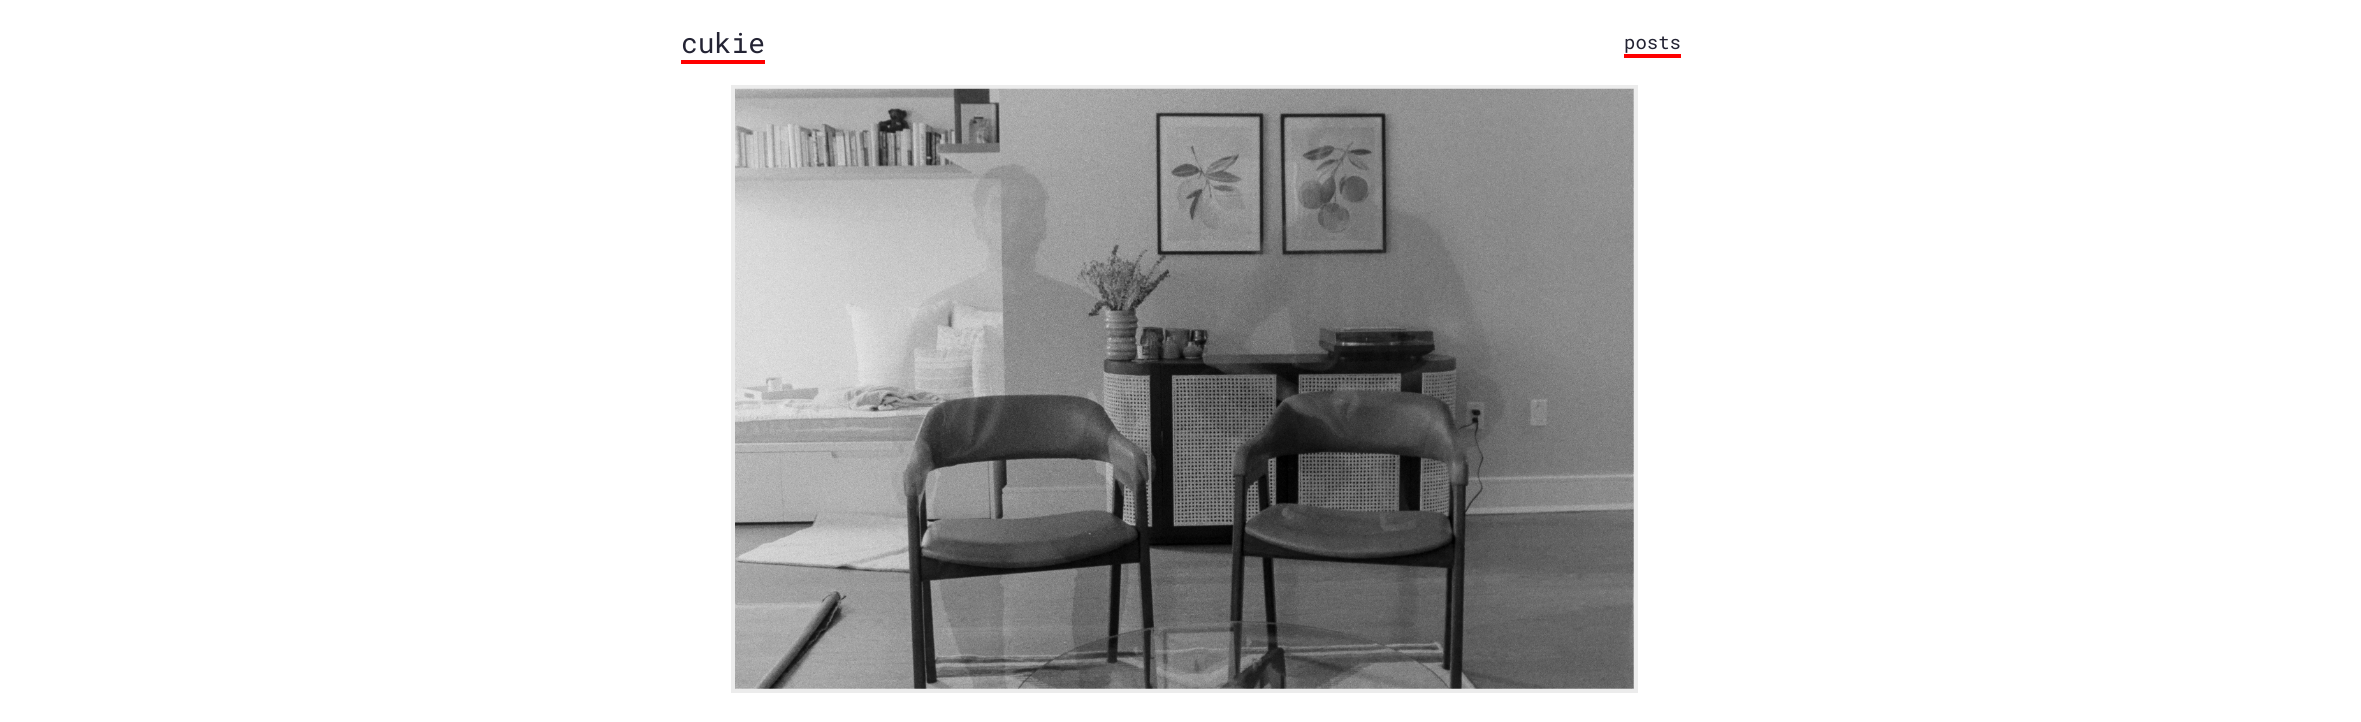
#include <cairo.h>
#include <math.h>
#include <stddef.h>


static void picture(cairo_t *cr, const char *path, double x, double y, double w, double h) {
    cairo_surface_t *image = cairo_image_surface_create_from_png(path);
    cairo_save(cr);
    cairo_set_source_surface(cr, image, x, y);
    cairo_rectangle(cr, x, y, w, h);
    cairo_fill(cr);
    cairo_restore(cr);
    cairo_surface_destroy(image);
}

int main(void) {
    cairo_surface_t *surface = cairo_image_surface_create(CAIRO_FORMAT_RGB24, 2361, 722);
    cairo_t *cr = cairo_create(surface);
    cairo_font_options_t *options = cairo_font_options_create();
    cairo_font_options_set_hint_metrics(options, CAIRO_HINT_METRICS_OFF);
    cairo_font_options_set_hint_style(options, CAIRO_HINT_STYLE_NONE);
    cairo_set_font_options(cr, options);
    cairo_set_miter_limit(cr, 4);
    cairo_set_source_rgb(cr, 1, 1, 1);
    cairo_paint(cr);
    cairo_select_font_face(cr, "Roboto Mono", CAIRO_FONT_SLANT_NORMAL, CAIRO_FONT_WEIGHT_NORMAL);
    cairo_set_font_size(cr, 28);
    cairo_set_source_rgb(cr, 0.137, 0.137, 0.2);
    cairo_move_to(cr, 681, 53);
    cairo_show_text(cr, "cukie");
    cairo_set_source_rgb(cr, 1, 0, 0);
    cairo_rectangle(cr, 681, 60, 84, 4);
    cairo_fill(cr);
    cairo_set_font_size(cr, 19);
    cairo_set_source_rgb(cr, 0.137, 0.137, 0.2);
    cairo_move_to(cr, 1624, 49);
    cairo_show_text(cr, "posts");
    cairo_set_source_rgb(cr, 1, 0, 0);
    cairo_rectangle(cr, 1624, 54, 57, 4);
    cairo_fill(cr);
    cairo_rectangle(cr, 733, 87, 903, 604);
    cairo_set_source_rgb(cr, 0.925, 0.925, 0.925);
    cairo_set_line_width(cr, 4);
    cairo_stroke(cr);
    picture(cr, "img1.png", 735, 88, 899, 601);
    cairo_surface_write_to_png(surface, "page.png");
    cairo_font_options_destroy(options);
    cairo_destroy(cr);
    cairo_surface_destroy(surface);
    return 0;
}
